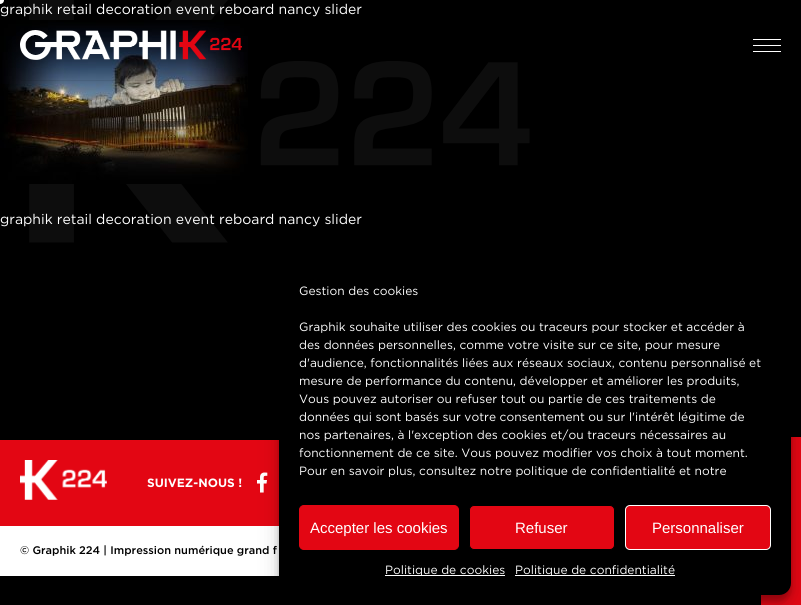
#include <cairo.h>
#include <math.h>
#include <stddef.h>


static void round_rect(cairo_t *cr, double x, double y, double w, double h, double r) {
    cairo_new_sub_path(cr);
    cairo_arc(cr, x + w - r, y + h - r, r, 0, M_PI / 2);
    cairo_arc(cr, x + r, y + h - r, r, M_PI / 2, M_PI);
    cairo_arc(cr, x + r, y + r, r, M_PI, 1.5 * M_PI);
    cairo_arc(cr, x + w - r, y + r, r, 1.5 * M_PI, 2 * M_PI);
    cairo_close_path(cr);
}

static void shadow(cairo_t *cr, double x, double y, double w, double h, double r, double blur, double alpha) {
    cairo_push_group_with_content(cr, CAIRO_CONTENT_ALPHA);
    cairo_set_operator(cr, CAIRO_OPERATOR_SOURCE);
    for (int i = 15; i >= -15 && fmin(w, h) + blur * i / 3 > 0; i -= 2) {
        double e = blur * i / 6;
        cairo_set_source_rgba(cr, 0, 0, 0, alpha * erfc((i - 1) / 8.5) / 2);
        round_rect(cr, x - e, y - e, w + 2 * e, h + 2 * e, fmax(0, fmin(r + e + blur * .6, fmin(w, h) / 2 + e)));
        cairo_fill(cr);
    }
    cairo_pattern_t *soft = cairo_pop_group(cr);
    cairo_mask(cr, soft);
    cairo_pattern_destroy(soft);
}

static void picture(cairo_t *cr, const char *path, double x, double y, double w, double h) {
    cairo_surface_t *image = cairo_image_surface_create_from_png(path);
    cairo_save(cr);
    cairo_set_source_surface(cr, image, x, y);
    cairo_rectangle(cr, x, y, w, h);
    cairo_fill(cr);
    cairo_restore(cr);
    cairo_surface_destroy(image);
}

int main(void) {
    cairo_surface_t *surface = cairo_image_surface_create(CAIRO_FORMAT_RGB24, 801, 605);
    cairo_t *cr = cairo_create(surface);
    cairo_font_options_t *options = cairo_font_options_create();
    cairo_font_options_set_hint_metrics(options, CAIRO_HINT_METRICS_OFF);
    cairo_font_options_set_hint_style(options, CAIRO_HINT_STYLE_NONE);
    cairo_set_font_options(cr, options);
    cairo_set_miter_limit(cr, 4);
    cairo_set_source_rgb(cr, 0, 0, 0);
    cairo_paint(cr);
    cairo_set_source_rgb(cr, 1, 1, 1);
    cairo_arc(cr, 0, 0, 4, 0, 2 * M_PI);
    cairo_fill(cr);
    picture(cr, "img1.png", 29, 0, 501, 243);
    cairo_select_font_face(cr, "Gotham", CAIRO_FONT_SLANT_NORMAL, CAIRO_FONT_WEIGHT_NORMAL);
    cairo_set_font_size(cr, 14);
    cairo_move_to(cr, 0, 14);
    cairo_show_text(cr, "graphik retail decoration event reboard nancy slider");
    picture(cr, "img2.png", 0, 20, 248, 164);
    cairo_move_to(cr, 0, 224);
    cairo_show_text(cr, "graphik retail decoration event reboard nancy slider");
    cairo_set_source_rgba(cr, 0, 0, 0, 0.07);
    cairo_rectangle(cr, 21, 80, 206, 1);
    cairo_fill(cr);
    picture(cr, "img3.png", 20, 30, 222, 30);
    cairo_set_source_rgb(cr, 1, 1, 1);
    cairo_rectangle(cr, 753, 45, 28, 1);
    cairo_fill(cr);
    cairo_rectangle(cr, 753, 39, 28, 1);
    cairo_fill(cr);
    cairo_rectangle(cr, 753, 51, 28, 1);
    cairo_fill(cr);
    cairo_set_source_rgb(cr, 0.89, 0.024, 0.075);
    cairo_rectangle(cr, 0, 440, 279, 86);
    cairo_fill(cr);
    picture(cr, "img4.png", 20, 460, 87, 40);
    cairo_select_font_face(cr, "Gotham", CAIRO_FONT_SLANT_NORMAL, CAIRO_FONT_WEIGHT_BOLD);
    cairo_set_font_size(cr, 12);
    cairo_set_source_rgb(cr, 1, 1, 1);
    cairo_move_to(cr, 147, 487);
    cairo_show_text(cr, "SUIVEZ-NOUS !");
    picture(cr, "img5.png", 257, 472, 11, 21);
    cairo_rectangle(cr, 0, 526, 279, 50);
    cairo_fill(cr);
    cairo_select_font_face(cr, "Gotham Medium", CAIRO_FONT_SLANT_NORMAL, CAIRO_FONT_WEIGHT_NORMAL);
    cairo_set_font_size(cr, 11);
    cairo_set_source_rgb(cr, 0, 0, 0);
    cairo_move_to(cr, 20, 554);
    cairo_show_text(cr, "© Graphik 224 | Impression numérique grand f");
    cairo_set_source_rgb(cr, 0.89, 0.024, 0.075);
    cairo_rectangle(cr, 761, 437, 40, 168);
    cairo_fill(cr);
    cairo_set_source_rgb(cr, 0, 0, 0);
    shadow(cr, 279, 253, 512, 348, 12, 3, 0.23);
    shadow(cr, 279, 257, 512, 348, 12, 10, 0.19);
    cairo_set_source_rgb(cr, 0, 0, 0);
    round_rect(cr, 279, 247, 512, 348, 12);
    cairo_fill(cr);
    cairo_select_font_face(cr, "Gotham", CAIRO_FONT_SLANT_NORMAL, CAIRO_FONT_WEIGHT_NORMAL);
    cairo_set_font_size(cr, 12);
    cairo_set_source_rgb(cr, 1, 1, 1);
    cairo_move_to(cr, 299, 295);
    cairo_show_text(cr, "Gestion des cookies");
    cairo_move_to(cr, 299, 331);
    cairo_show_text(cr, "Graphik souhaite utiliser des cookies ou traceurs pour stocker et accéder à");
    cairo_move_to(cr, 299, 349);
    cairo_show_text(cr, "des données personnelles, comme votre visite sur ce site, pour mesure");
    cairo_move_to(cr, 299, 367);
    cairo_show_text(cr, "d'audience, fonctionnalités liées aux réseaux sociaux, contenu personnalisé et");
    cairo_move_to(cr, 299, 385);
    cairo_show_text(cr, "mesure de performance du contenu, développer et améliorer les produits,");
    cairo_move_to(cr, 299, 403);
    cairo_show_text(cr, "Vous pouvez autoriser ou refuser tout ou partie de ces traitements de");
    cairo_move_to(cr, 299, 421);
    cairo_show_text(cr, "données qui sont basés sur votre consentement ou sur l'intérêt légitime de");
    cairo_move_to(cr, 299, 439);
    cairo_show_text(cr, "nos partenaires, à l'exception des cookies et/ou traceurs nécessaires au");
    cairo_move_to(cr, 299, 457);
    cairo_show_text(cr, "fonctionnement de ce site. Vous pouvez modifier vos choix à tout moment.");
    cairo_move_to(cr, 299, 475);
    cairo_show_text(cr, "Pour en savoir plus, consultez notre politique de confidentialité et notre");
    cairo_set_source_rgb(cr, 0.89, 0.024, 0.075);
    round_rect(cr, 299.5, 505.5, 159, 44, 4.5);
    cairo_fill_preserve(cr);
    cairo_set_line_width(cr, 1);
    cairo_stroke(cr);
    cairo_select_font_face(cr, "Liberation Sans", CAIRO_FONT_SLANT_NORMAL, CAIRO_FONT_WEIGHT_NORMAL);
    cairo_set_font_size(cr, 15);
    cairo_set_source_rgb(cr, 1, 1, 1);
    cairo_move_to(cr, 310, 533);
    cairo_show_text(cr, "Accepter les cookies");
    cairo_set_source_rgb(cr, 0.89, 0.024, 0.075);
    round_rect(cr, 469.5, 505.5, 145, 44, 4.5);
    cairo_fill_preserve(cr);
    cairo_set_source_rgb(cr, 0, 0, 0);
    cairo_stroke(cr);
    cairo_set_source_rgb(cr, 1, 1, 1);
    cairo_move_to(cr, 515, 533);
    cairo_show_text(cr, "Refuser");
    cairo_set_source_rgb(cr, 0.89, 0.024, 0.075);
    round_rect(cr, 625.5, 505.5, 145, 44, 4.5);
    cairo_fill_preserve(cr);
    cairo_set_source_rgb(cr, 1, 1, 1);
    cairo_stroke(cr);
    cairo_move_to(cr, 652, 533);
    cairo_show_text(cr, "Personnaliser");
    cairo_rectangle(cr, 385, 575, 120, 1);
    cairo_fill(cr);
    cairo_select_font_face(cr, "Gotham", CAIRO_FONT_SLANT_NORMAL, CAIRO_FONT_WEIGHT_NORMAL);
    cairo_set_font_size(cr, 12);
    cairo_move_to(cr, 385, 574);
    cairo_show_text(cr, "Politique de cookies");
    cairo_rectangle(cr, 515, 575, 160, 1);
    cairo_fill(cr);
    cairo_move_to(cr, 515, 574);
    cairo_show_text(cr, "Politique de confidentialité");
    cairo_surface_write_to_png(surface, "page.png");
    cairo_font_options_destroy(options);
    cairo_destroy(cr);
    cairo_surface_destroy(surface);
    return 0;
}
